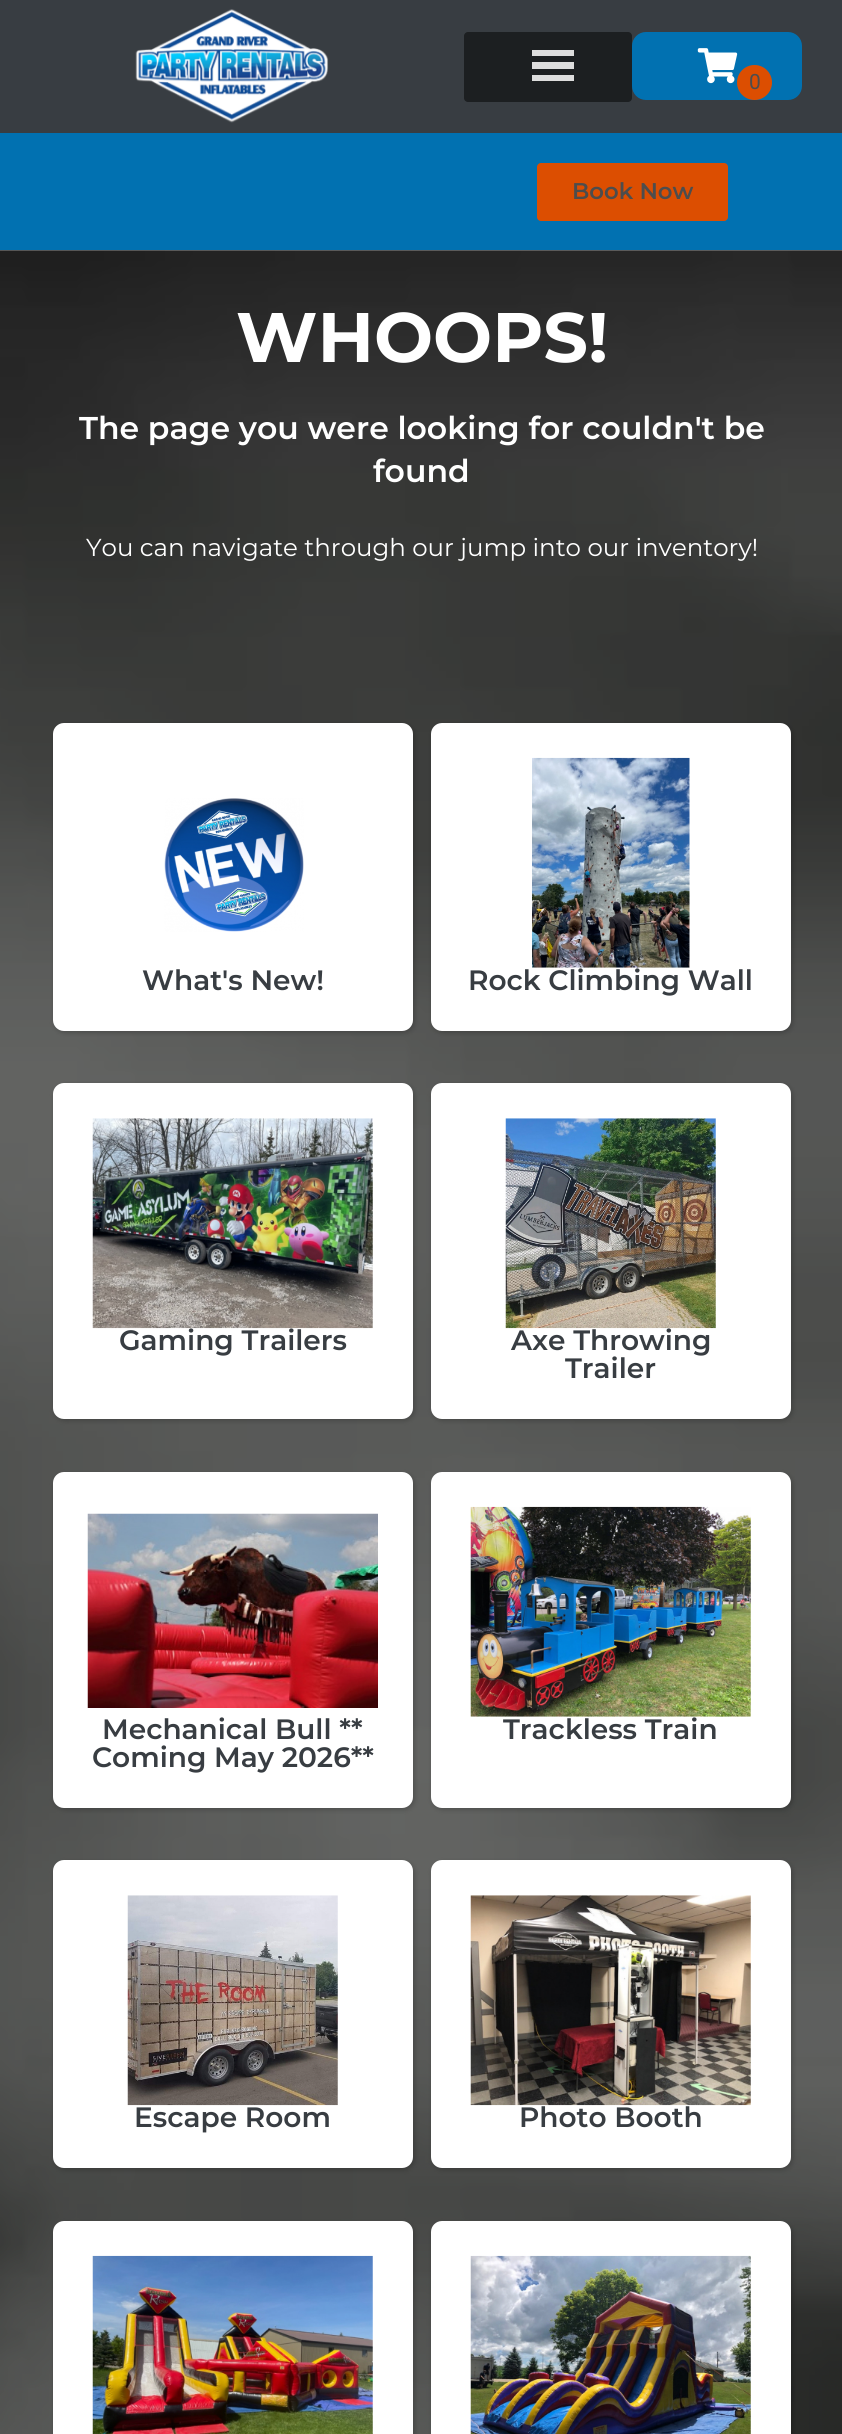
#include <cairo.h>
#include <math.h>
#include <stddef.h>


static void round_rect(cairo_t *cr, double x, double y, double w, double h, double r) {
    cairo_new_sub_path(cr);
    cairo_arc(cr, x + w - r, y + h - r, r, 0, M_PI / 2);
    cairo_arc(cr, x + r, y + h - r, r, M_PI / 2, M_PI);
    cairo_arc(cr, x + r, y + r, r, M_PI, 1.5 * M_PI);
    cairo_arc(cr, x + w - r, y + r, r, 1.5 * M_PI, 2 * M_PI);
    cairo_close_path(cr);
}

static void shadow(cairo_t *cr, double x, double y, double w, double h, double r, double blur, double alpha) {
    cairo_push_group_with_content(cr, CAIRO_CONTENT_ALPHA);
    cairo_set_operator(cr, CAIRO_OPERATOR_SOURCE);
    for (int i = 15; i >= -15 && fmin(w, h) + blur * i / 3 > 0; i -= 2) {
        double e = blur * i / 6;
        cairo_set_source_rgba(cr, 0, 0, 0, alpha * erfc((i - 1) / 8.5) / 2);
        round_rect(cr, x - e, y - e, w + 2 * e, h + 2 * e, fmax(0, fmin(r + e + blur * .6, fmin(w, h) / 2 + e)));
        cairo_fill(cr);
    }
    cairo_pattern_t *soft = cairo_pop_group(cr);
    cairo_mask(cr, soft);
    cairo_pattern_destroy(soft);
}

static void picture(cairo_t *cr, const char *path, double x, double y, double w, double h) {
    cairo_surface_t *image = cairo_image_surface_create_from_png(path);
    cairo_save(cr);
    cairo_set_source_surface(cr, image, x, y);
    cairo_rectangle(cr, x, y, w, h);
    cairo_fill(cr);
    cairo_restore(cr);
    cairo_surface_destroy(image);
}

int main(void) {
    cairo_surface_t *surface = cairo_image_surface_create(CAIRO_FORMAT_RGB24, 842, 2434);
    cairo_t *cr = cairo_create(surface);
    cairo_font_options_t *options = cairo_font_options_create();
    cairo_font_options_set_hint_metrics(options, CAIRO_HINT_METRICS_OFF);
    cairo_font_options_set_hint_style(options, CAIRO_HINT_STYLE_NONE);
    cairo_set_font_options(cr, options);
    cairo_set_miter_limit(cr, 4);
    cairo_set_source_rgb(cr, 1, 1, 1);
    cairo_paint(cr);
    cairo_set_source_rgb(cr, 0.22, 0.239, 0.259);
    cairo_rectangle(cr, 0, 0, 842, 133);
    cairo_fill(cr);
    picture(cr, "img1.png", 135, 9, 194, 114);
    cairo_set_source_rgb(cr, 0.11, 0.122, 0.129);
    round_rect(cr, 464, 32, 168, 70, 4);
    cairo_fill(cr);
    cairo_set_source_rgb(cr, 0.867, 0.867, 0.867);
    cairo_new_path(cr);
    cairo_move_to(cr, 574, 56);
    cairo_line_to(cr, 574, 50);
    cairo_line_to(cr, 532, 50);
    cairo_line_to(cr, 532, 56);
    cairo_close_path(cr);
    cairo_move_to(cr, 574, 69);
    cairo_line_to(cr, 574, 62);
    cairo_line_to(cr, 532, 62);
    cairo_line_to(cr, 532, 69);
    cairo_close_path(cr);
    cairo_move_to(cr, 574, 81);
    cairo_line_to(cr, 574, 75);
    cairo_line_to(cr, 532, 75);
    cairo_line_to(cr, 532, 81);
    cairo_close_path(cr);
    cairo_fill(cr);
    cairo_set_source_rgb(cr, 0.004, 0.443, 0.694);
    round_rect(cr, 632, 32, 170, 68, 14);
    cairo_fill(cr);
    picture(cr, "img2.png", 697, 48, 41, 36);
    cairo_set_source_rgb(cr, 0.863, 0.306, 0.004);
    cairo_arc(cr, 754.5, 82.5, 17.5, 0, 2 * M_PI);
    cairo_fill(cr);
    cairo_select_font_face(cr, "Roboto", CAIRO_FONT_SLANT_NORMAL, CAIRO_FONT_WEIGHT_NORMAL);
    cairo_set_font_size(cr, 21);
    cairo_set_source_rgb(cr, 0.302, 0.302, 0.302);
    cairo_move_to(cr, 749, 89);
    cairo_show_text(cr, "0");
    cairo_set_source_rgb(cr, 0.004, 0.443, 0.694);
    cairo_rectangle(cr, 0, 133, 842, 117);
    cairo_fill(cr);
    cairo_set_source_rgb(cr, 0.863, 0.306, 0.004);
    round_rect(cr, 537, 163, 191, 58, 4);
    cairo_fill(cr);
    cairo_select_font_face(cr, "Montserrat SemiBold", CAIRO_FONT_SLANT_NORMAL, CAIRO_FONT_WEIGHT_NORMAL);
    cairo_set_font_size(cr, 22.75);
    cairo_set_source_rgb(cr, 0.302, 0.302, 0.302);
    cairo_move_to(cr, 572, 199);
    cairo_show_text(cr, "Book Now");
    picture(cr, "img3.png", 0, 250, 842, 2184);
    cairo_select_font_face(cr, "Montserrat", CAIRO_FONT_SLANT_NORMAL, CAIRO_FONT_WEIGHT_BOLD);
    cairo_set_font_size(cr, 70);
    cairo_set_source_rgb(cr, 1, 1, 1);
    cairo_move_to(cr, 236, 362);
    cairo_show_text(cr, "WHOOPS!");
    cairo_select_font_face(cr, "Montserrat SemiBold", CAIRO_FONT_SLANT_NORMAL, CAIRO_FONT_WEIGHT_NORMAL);
    cairo_set_font_size(cr, 31.5);
    cairo_move_to(cr, 79, 439);
    cairo_show_text(cr, "The page you were looking for couldn't be");
    cairo_move_to(cr, 373, 482);
    cairo_show_text(cr, "found");
    cairo_select_font_face(cr, "Montserrat", CAIRO_FONT_SLANT_NORMAL, CAIRO_FONT_WEIGHT_NORMAL);
    cairo_set_font_size(cr, 24.5);
    cairo_move_to(cr, 86, 556);
    cairo_show_text(cr, "You can navigate through our jump into our inventory!");
    cairo_set_source_rgb(cr, 0, 0, 0);
    shadow(cr, 54, 725, 361, 308, 11, 2.5, 0.2);
    cairo_set_source_rgb(cr, 1, 1, 1);
    round_rect(cr, 53, 723, 360, 308, 11);
    cairo_fill(cr);
    picture(cr, "img4.png", 164, 798, 140, 134);
    cairo_select_font_face(cr, "Montserrat SemiBold", CAIRO_FONT_SLANT_NORMAL, CAIRO_FONT_WEIGHT_NORMAL);
    cairo_set_font_size(cr, 28);
    cairo_set_source_rgb(cr, 0.22, 0.239, 0.259);
    cairo_move_to(cr, 142, 990);
    cairo_show_text(cr, "What's New!");
    cairo_set_source_rgb(cr, 0, 0, 0);
    shadow(cr, 432, 725, 361, 308, 11, 2.5, 0.2);
    cairo_set_source_rgb(cr, 1, 1, 1);
    round_rect(cr, 431, 723, 360, 308, 11);
    cairo_fill(cr);
    picture(cr, "img5.png", 532, 757, 158, 211);
    cairo_set_source_rgb(cr, 0.22, 0.239, 0.259);
    cairo_move_to(cr, 468, 990);
    cairo_show_text(cr, "Rock Climbing Wall");
    cairo_set_source_rgb(cr, 0, 0, 0);
    shadow(cr, 54, 1085, 361, 336, 11, 2.5, 0.2);
    cairo_set_source_rgb(cr, 1, 1, 1);
    round_rect(cr, 53, 1083, 360, 336, 11);
    cairo_fill(cr);
    cairo_set_source_rgb(cr, 0.22, 0.239, 0.259);
    cairo_move_to(cr, 119, 1350);
    cairo_show_text(cr, "Gaming Trailers");
    picture(cr, "img6.png", 92, 1118, 281, 211);
    cairo_set_source_rgb(cr, 0, 0, 0);
    shadow(cr, 432, 1085, 361, 336, 11, 2.5, 0.2);
    cairo_set_source_rgb(cr, 1, 1, 1);
    round_rect(cr, 431, 1083, 360, 336, 11);
    cairo_fill(cr);
    cairo_set_source_rgb(cr, 0.22, 0.239, 0.259);
    cairo_move_to(cr, 511, 1350);
    cairo_show_text(cr, "Axe Throwing");
    picture(cr, "img7.png", 505, 1118, 211, 211);
    cairo_move_to(cr, 565, 1378);
    cairo_show_text(cr, "Trailer");
    cairo_set_source_rgb(cr, 0, 0, 0);
    shadow(cr, 54, 1474, 361, 336, 11, 2.5, 0.2);
    cairo_set_source_rgb(cr, 1, 1, 1);
    round_rect(cr, 53, 1472, 360, 336, 11);
    cairo_fill(cr);
    picture(cr, "img8.png", 87, 1513, 291, 195);
    cairo_set_source_rgb(cr, 0.22, 0.239, 0.259);
    cairo_move_to(cr, 102, 1739);
    cairo_show_text(cr, "Mechanical Bull **");
    cairo_move_to(cr, 92, 1767);
    cairo_show_text(cr, "Coming May 2026**");
    cairo_set_source_rgb(cr, 0, 0, 0);
    shadow(cr, 432, 1474, 361, 336, 11, 2.5, 0.2);
    cairo_set_source_rgb(cr, 1, 1, 1);
    round_rect(cr, 431, 1472, 360, 336, 11);
    cairo_fill(cr);
    picture(cr, "img9.png", 470, 1506, 281, 211);
    cairo_set_source_rgb(cr, 0.22, 0.239, 0.259);
    cairo_move_to(cr, 503, 1739);
    cairo_show_text(cr, "Trackless Train");
    cairo_set_source_rgb(cr, 0, 0, 0);
    shadow(cr, 54, 1862, 361, 308, 11, 2.5, 0.2);
    cairo_set_source_rgb(cr, 1, 1, 1);
    round_rect(cr, 53, 1860, 360, 308, 11);
    cairo_fill(cr);
    picture(cr, "img10.png", 127, 1895, 211, 211);
    cairo_set_source_rgb(cr, 0.22, 0.239, 0.259);
    cairo_move_to(cr, 134, 2127);
    cairo_show_text(cr, "Escape Room");
    cairo_set_source_rgb(cr, 0, 0, 0);
    shadow(cr, 432, 1862, 361, 308, 11, 2.5, 0.2);
    cairo_set_source_rgb(cr, 1, 1, 1);
    round_rect(cr, 431, 1860, 360, 308, 11);
    cairo_fill(cr);
    picture(cr, "img11.png", 470, 1895, 281, 211);
    cairo_set_source_rgb(cr, 0.22, 0.239, 0.259);
    cairo_move_to(cr, 519, 2127);
    cairo_show_text(cr, "Photo Booth");
    cairo_set_source_rgb(cr, 0, 0, 0);
    shadow(cr, 54, 2223, 361, 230, 11, 2.5, 0.2);
    cairo_set_source_rgb(cr, 1, 1, 1);
    round_rect(cr, 53, 2221, 360, 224, 11);
    cairo_fill(cr);
    picture(cr, "img12.png", 92, 2255, 281, 179);
    cairo_set_source_rgb(cr, 0, 0, 0);
    shadow(cr, 432, 2223, 361, 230, 11, 2.5, 0.2);
    cairo_set_source_rgb(cr, 1, 1, 1);
    round_rect(cr, 431, 2221, 360, 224, 11);
    cairo_fill(cr);
    picture(cr, "img13.png", 470, 2255, 281, 179);
    cairo_surface_write_to_png(surface, "page.png");
    cairo_font_options_destroy(options);
    cairo_destroy(cr);
    cairo_surface_destroy(surface);
    return 0;
}
